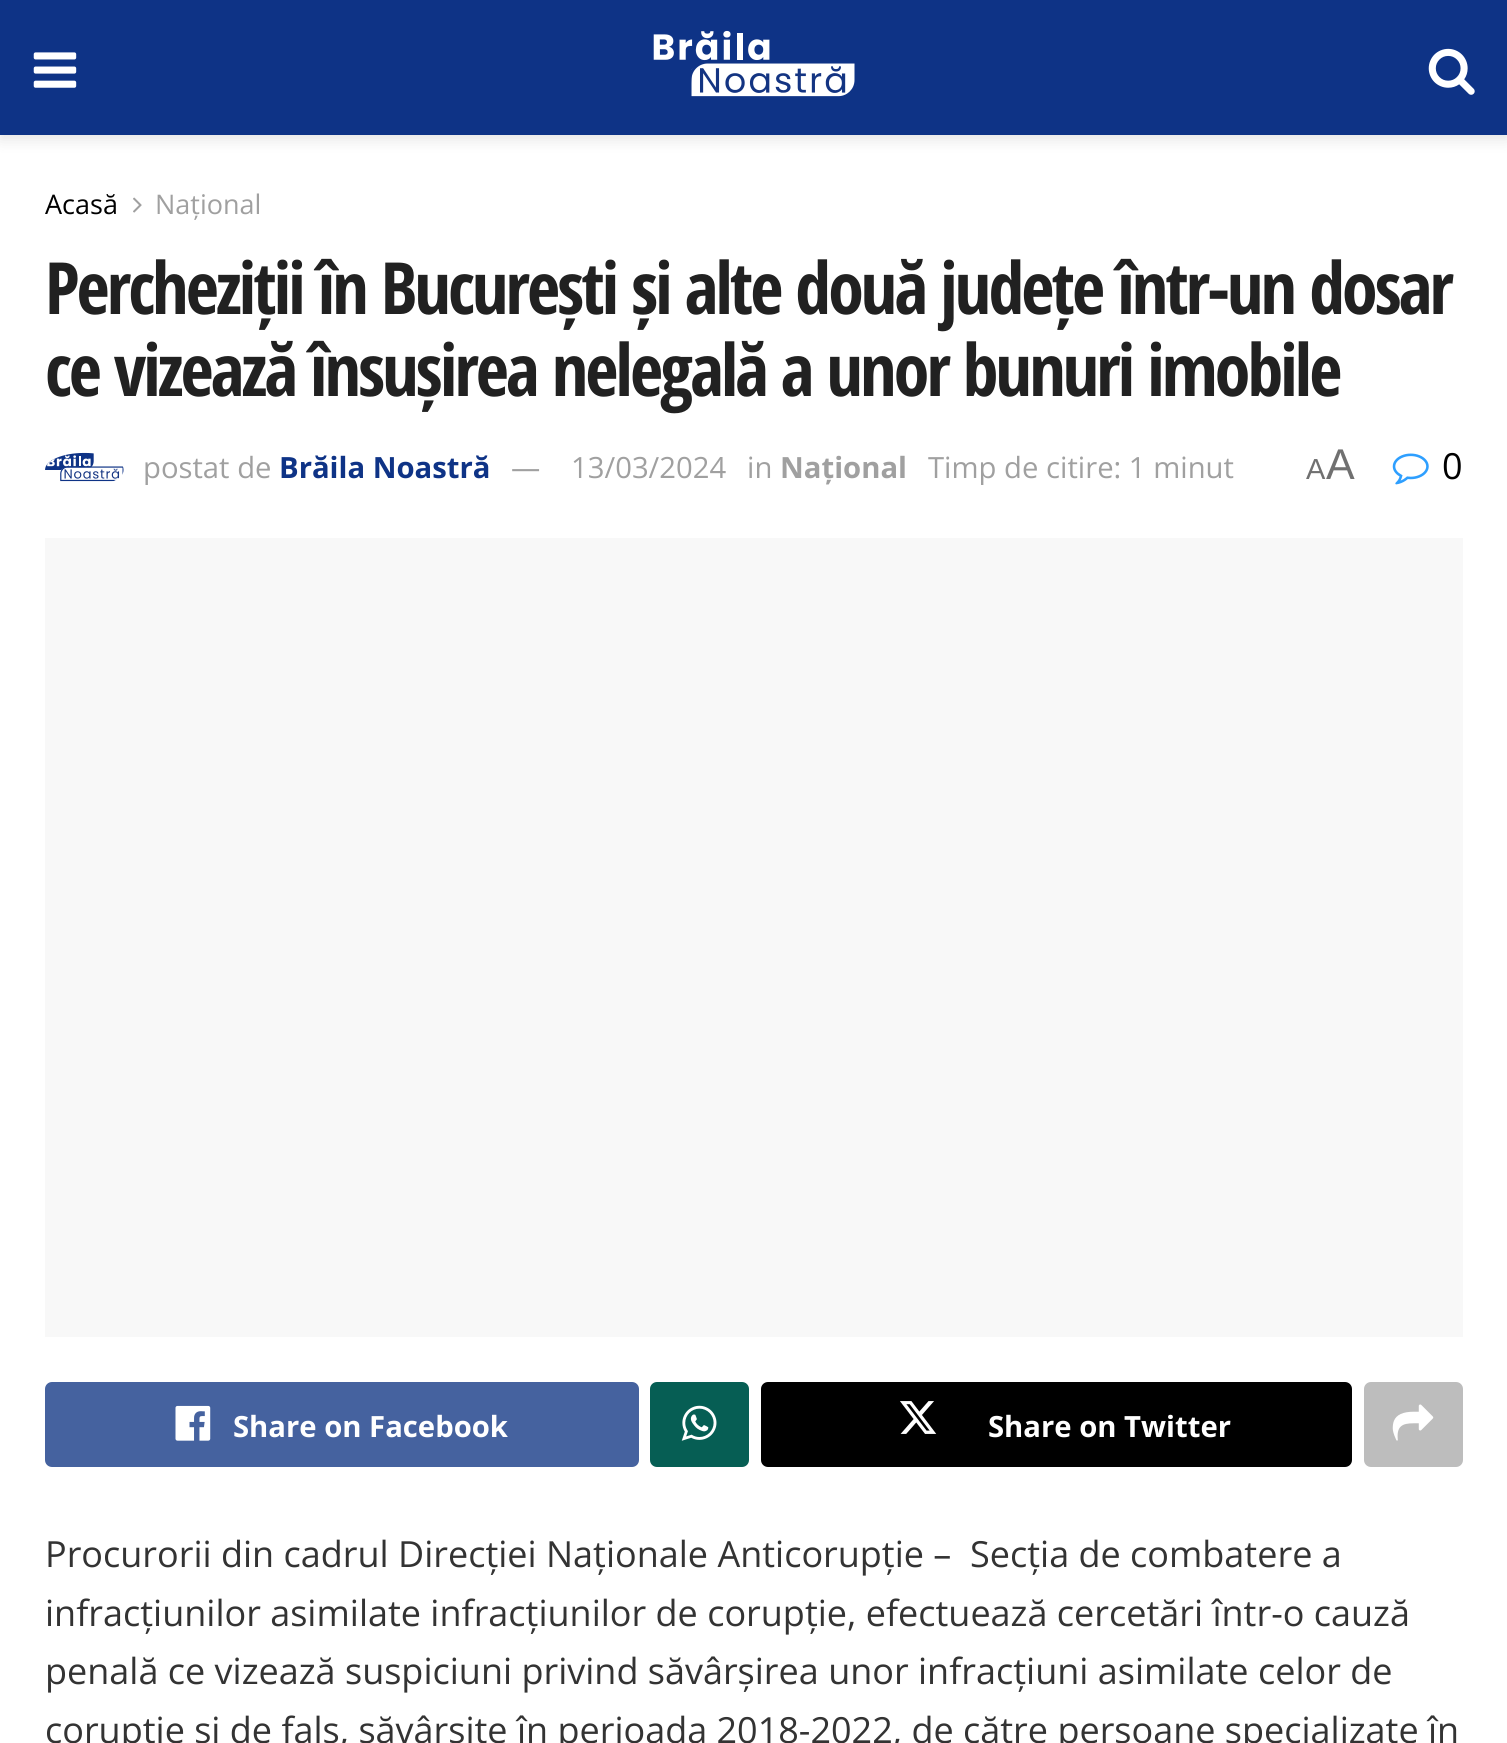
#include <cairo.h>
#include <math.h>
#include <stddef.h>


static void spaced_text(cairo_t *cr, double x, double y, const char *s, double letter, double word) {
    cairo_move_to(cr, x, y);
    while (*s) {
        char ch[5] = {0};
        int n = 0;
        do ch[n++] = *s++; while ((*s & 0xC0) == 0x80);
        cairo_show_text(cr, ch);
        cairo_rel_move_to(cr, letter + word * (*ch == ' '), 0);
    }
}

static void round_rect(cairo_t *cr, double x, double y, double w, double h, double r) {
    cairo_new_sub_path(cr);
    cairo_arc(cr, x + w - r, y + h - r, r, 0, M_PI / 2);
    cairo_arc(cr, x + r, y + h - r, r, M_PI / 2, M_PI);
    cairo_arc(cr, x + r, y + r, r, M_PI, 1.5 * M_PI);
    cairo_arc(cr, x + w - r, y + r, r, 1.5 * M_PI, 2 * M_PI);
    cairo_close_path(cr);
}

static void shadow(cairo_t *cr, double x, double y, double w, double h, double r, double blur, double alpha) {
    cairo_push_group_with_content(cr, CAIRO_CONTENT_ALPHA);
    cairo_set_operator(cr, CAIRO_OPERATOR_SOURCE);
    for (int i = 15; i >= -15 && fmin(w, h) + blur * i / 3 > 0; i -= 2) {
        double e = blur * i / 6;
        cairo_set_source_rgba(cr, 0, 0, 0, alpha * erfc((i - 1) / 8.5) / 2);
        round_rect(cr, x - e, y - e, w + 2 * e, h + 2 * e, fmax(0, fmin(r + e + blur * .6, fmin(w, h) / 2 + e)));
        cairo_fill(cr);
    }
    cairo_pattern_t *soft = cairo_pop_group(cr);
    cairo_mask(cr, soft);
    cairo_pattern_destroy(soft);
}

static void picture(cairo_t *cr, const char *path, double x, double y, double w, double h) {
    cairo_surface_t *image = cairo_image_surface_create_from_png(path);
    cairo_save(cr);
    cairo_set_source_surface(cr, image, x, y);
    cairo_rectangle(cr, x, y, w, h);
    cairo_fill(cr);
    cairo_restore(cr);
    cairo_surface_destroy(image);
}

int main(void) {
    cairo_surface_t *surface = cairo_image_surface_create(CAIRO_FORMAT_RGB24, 1507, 1743);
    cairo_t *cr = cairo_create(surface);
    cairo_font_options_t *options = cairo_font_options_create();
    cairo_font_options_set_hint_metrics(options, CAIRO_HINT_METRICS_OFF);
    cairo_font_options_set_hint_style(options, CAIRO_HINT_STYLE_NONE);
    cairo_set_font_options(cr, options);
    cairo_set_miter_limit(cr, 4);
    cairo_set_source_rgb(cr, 1, 1, 1);
    cairo_paint(cr);
    cairo_set_source_rgb(cr, 0, 0, 0);
    shadow(cr, 0, 5, 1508, 135, 0, 7, 0.1);
    cairo_set_source_rgb(cr, 0.055, 0.2, 0.525);
    cairo_rectangle(cr, 0, 0, 1507, 135);
    cairo_fill(cr);
    picture(cr, "img1.png", 33, 52, 44, 36);
    picture(cr, "img2.png", 653, 30, 204, 67);
    picture(cr, "img3.png", 1428, 48, 47, 47);
    cairo_select_font_face(cr, "Open Sans", CAIRO_FONT_SLANT_NORMAL, CAIRO_FONT_WEIGHT_NORMAL);
    cairo_set_font_size(cr, 27);
    cairo_set_source_rgb(cr, 0, 0, 0);
    cairo_move_to(cr, 45, 214);
    cairo_show_text(cr, "Acasă");
    picture(cr, "img4.png", 133, 197, 9, 16);
    cairo_set_source_rgb(cr, 0.627, 0.627, 0.627);
    cairo_move_to(cr, 155, 214);
    cairo_show_text(cr, "Național");
    cairo_select_font_face(cr, "Open Sans Condensed", CAIRO_FONT_SLANT_NORMAL, CAIRO_FONT_WEIGHT_BOLD);
    cairo_set_font_size(cr, 72);
    cairo_set_source_rgb(cr, 0.129, 0.129, 0.129);
    spaced_text(cr, 45, 314, "Percheziții în București și alte două județe într-un dosar", -2.88, 0);
    spaced_text(cr, 45, 396, "ce vizează însușirea nelegală a unor bunuri imobile", -2.88, 0);
    picture(cr, "img5.png", 45, 452, 79, 30);
    cairo_select_font_face(cr, "Open Sans", CAIRO_FONT_SLANT_NORMAL, CAIRO_FONT_WEIGHT_NORMAL);
    cairo_set_font_size(cr, 29.25);
    cairo_set_source_rgb(cr, 0.627, 0.627, 0.627);
    cairo_move_to(cr, 143, 478);
    cairo_show_text(cr, "postat de");
    cairo_select_font_face(cr, "Open Sans", CAIRO_FONT_SLANT_NORMAL, CAIRO_FONT_WEIGHT_BOLD);
    cairo_set_source_rgb(cr, 0.055, 0.2, 0.525);
    cairo_move_to(cr, 279, 478);
    cairo_show_text(cr, "Brăila Noastră");
    cairo_select_font_face(cr, "Open Sans", CAIRO_FONT_SLANT_NORMAL, CAIRO_FONT_WEIGHT_NORMAL);
    cairo_set_source_rgb(cr, 0.627, 0.627, 0.627);
    cairo_move_to(cr, 511, 478);
    cairo_show_text(cr, "—");
    cairo_move_to(cr, 571, 478);
    cairo_show_text(cr, "13/03/2024");
    cairo_move_to(cr, 747, 478);
    cairo_show_text(cr, "in");
    cairo_select_font_face(cr, "Open Sans", CAIRO_FONT_SLANT_NORMAL, CAIRO_FONT_WEIGHT_BOLD);
    cairo_move_to(cr, 780, 478);
    cairo_show_text(cr, "Național");
    cairo_select_font_face(cr, "Open Sans", CAIRO_FONT_SLANT_NORMAL, CAIRO_FONT_WEIGHT_NORMAL);
    cairo_move_to(cr, 928, 478);
    cairo_show_text(cr, "Timp de citire: 1 minut");
    cairo_select_font_face(cr, "Liberation Sans", CAIRO_FONT_SLANT_NORMAL, CAIRO_FONT_WEIGHT_NORMAL);
    cairo_set_font_size(cr, 29);
    cairo_set_source_rgb(cr, 0.439, 0.439, 0.439);
    cairo_move_to(cr, 1306, 479);
    cairo_show_text(cr, "A");
    cairo_set_font_size(cr, 43);
    cairo_move_to(cr, 1326, 479);
    cairo_show_text(cr, "A");
    picture(cr, "img6.png", 1392, 453, 37, 32);
    cairo_select_font_face(cr, "Open Sans", CAIRO_FONT_SLANT_NORMAL, CAIRO_FONT_WEIGHT_NORMAL);
    cairo_set_font_size(cr, 36);
    cairo_set_source_rgb(cr, 0, 0, 0);
    cairo_move_to(cr, 1442, 479);
    cairo_show_text(cr, "0");
    cairo_set_source_rgb(cr, 0.969, 0.969, 0.969);
    cairo_rectangle(cr, 45, 538, 1418, 799);
    cairo_fill(cr);
    cairo_set_source_rgb(cr, 0.271, 0.384, 0.624);
    round_rect(cr, 45, 1382, 594, 85, 7);
    cairo_fill(cr);
    picture(cr, "img7.png", 175, 1405, 36, 36);
    cairo_select_font_face(cr, "Open Sans", CAIRO_FONT_SLANT_NORMAL, CAIRO_FONT_WEIGHT_BOLD);
    cairo_set_font_size(cr, 29.25);
    cairo_set_source_rgb(cr, 1, 1, 1);
    cairo_move_to(cr, 233, 1437);
    cairo_show_text(cr, "Share on Facebook");
    cairo_set_source_rgb(cr, 0.027, 0.369, 0.329);
    round_rect(cr, 650, 1382, 99, 85, 7);
    cairo_fill(cr);
    picture(cr, "img8.png", 681, 1405, 36, 36);
    cairo_set_source_rgb(cr, 0, 0, 0);
    round_rect(cr, 761, 1382, 591, 85, 7);
    cairo_fill(cr);
    picture(cr, "img9.png", 900, 1401, 37, 33);
    cairo_set_source_rgb(cr, 1, 1, 1);
    cairo_move_to(cr, 988, 1437);
    cairo_show_text(cr, "Share on Twitter");
    cairo_set_source_rgb(cr, 0.741, 0.741, 0.741);
    round_rect(cr, 1364, 1382, 99, 85, 7);
    cairo_fill(cr);
    picture(cr, "img10.png", 1392, 1404, 42, 37);
    cairo_select_font_face(cr, "Open Sans", CAIRO_FONT_SLANT_NORMAL, CAIRO_FONT_WEIGHT_NORMAL);
    cairo_set_font_size(cr, 36);
    cairo_set_source_rgb(cr, 0.2, 0.2, 0.2);
    cairo_move_to(cr, 45, 1567);
    cairo_show_text(cr, "Procurorii din cadrul Direcției Naționale Anticorupție –  Secția de combatere a");
    cairo_move_to(cr, 45, 1626);
    cairo_show_text(cr, "infracțiunilor asimilate infracțiunilor de corupție, efectuează cercetări într-o cauză");
    cairo_move_to(cr, 45, 1684);
    cairo_show_text(cr, "penală ce vizează suspiciuni privind săvârșirea unor infracțiuni asimilate celor de");
    cairo_move_to(cr, 45, 1743);
    cairo_show_text(cr, "corupție și de fals, săvârșite în perioada 2018-2022, de către persoane specializate în");
    cairo_surface_write_to_png(surface, "page.png");
    cairo_font_options_destroy(options);
    cairo_destroy(cr);
    cairo_surface_destroy(surface);
    return 0;
}
